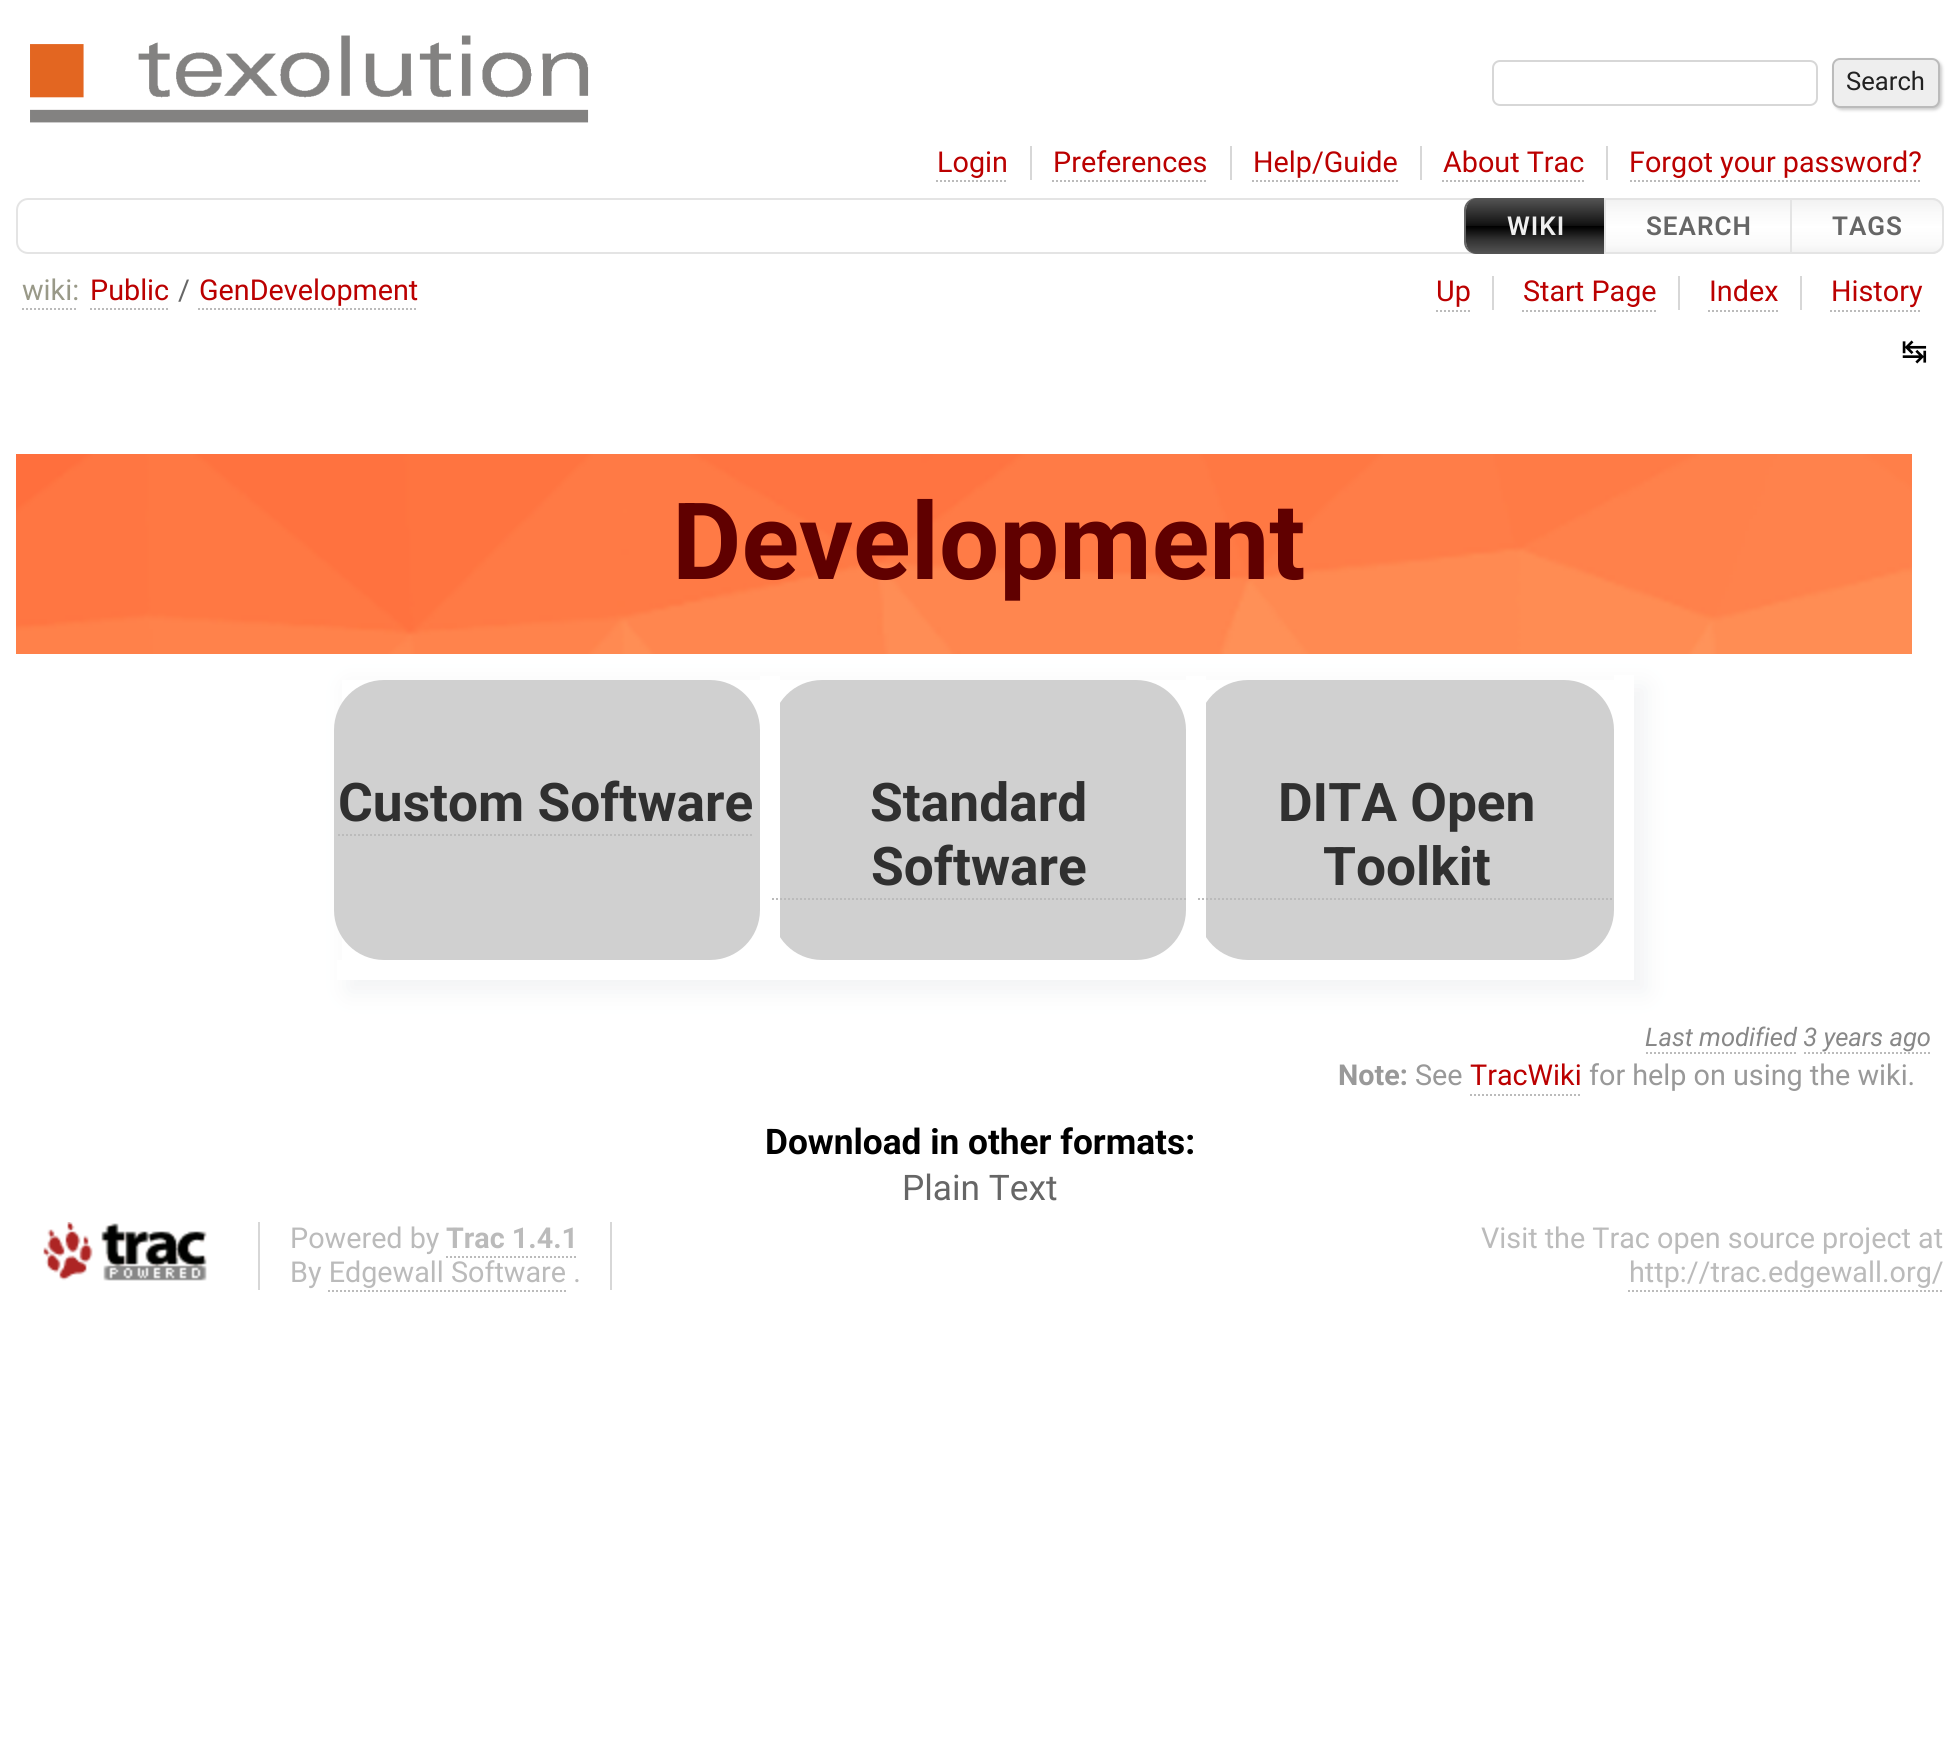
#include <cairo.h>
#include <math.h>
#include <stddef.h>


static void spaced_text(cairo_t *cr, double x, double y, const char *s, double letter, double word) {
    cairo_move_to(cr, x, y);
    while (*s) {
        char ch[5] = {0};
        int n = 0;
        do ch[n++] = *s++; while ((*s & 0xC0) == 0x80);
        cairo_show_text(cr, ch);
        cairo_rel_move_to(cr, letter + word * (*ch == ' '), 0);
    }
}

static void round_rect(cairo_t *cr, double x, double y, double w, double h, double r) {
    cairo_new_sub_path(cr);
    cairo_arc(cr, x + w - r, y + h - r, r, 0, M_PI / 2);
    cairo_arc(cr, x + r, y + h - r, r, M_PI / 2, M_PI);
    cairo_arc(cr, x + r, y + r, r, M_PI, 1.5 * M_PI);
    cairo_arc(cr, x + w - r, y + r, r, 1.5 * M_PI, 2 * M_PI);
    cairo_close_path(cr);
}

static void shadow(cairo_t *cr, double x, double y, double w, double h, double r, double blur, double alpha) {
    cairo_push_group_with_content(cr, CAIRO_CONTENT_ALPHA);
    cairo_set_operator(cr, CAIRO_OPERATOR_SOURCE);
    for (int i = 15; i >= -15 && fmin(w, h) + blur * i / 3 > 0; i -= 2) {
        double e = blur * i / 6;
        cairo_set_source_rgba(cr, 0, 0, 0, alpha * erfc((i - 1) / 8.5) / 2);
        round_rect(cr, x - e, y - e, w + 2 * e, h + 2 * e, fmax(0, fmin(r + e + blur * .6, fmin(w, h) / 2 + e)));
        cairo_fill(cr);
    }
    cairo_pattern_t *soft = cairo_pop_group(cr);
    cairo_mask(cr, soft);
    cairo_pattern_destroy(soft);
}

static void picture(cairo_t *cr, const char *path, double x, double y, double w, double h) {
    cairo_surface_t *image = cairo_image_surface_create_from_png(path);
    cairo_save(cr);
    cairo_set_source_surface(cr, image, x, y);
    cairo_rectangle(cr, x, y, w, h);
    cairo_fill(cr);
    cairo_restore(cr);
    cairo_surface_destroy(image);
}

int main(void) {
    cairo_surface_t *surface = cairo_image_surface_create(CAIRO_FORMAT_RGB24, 1959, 1757);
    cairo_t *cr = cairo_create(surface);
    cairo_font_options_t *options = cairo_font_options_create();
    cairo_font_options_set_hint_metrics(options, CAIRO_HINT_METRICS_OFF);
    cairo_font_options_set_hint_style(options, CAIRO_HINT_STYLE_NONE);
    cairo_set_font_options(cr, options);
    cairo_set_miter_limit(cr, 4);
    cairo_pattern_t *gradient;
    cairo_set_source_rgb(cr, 1, 1, 1);
    cairo_paint(cr);
    picture(cr, "img1.png", 30, 35, 559, 88);
    round_rect(cr, 1493, 61, 324, 44, 7);
    cairo_set_source_rgb(cr, 0.843, 0.843, 0.843);
    cairo_stroke(cr);
    cairo_set_source_rgb(cr, 0.8, 0.8, 0.8);
    shadow(cr, 1834, 60, 108, 50, 8, 1.5, 1);
    cairo_set_source_rgb(cr, 0.933, 0.933, 0.933);
    round_rect(cr, 1833, 59, 106, 48, 7);
    cairo_fill_preserve(cr);
    cairo_set_source_rgb(cr, 0.733, 0.733, 0.733);
    cairo_stroke(cr);
    cairo_select_font_face(cr, "Roboto", CAIRO_FONT_SLANT_NORMAL, CAIRO_FONT_WEIGHT_NORMAL);
    cairo_set_font_size(cr, 25.6);
    cairo_set_source_rgb(cr, 0.133, 0.133, 0.133);
    cairo_move_to(cr, 1846, 90);
    cairo_show_text(cr, "Search");
    cairo_set_source_rgb(cr, 0.843, 0.843, 0.843);
    cairo_rectangle(cr, 1030, 146, 2, 34);
    cairo_fill(cr);
    cairo_set_font_size(cr, 28.75);
    cairo_set_source_rgb(cr, 0.733, 0, 0);
    cairo_move_to(cr, 937, 172);
    cairo_show_text(cr, "Login");
    cairo_new_path(cr);
    cairo_move_to(cr, 936, 181);
    cairo_line_to(cr, 1008, 181);
    cairo_set_source_rgb(cr, 0.733, 0.733, 0.733);
    cairo_set_dash(cr, (double[]){2, 2}, 2, 0);
    cairo_stroke(cr);
    cairo_set_source_rgb(cr, 0.843, 0.843, 0.843);
    cairo_rectangle(cr, 1230, 146, 2, 34);
    cairo_fill(cr);
    cairo_set_source_rgb(cr, 0.733, 0, 0);
    cairo_move_to(cr, 1053, 172);
    cairo_show_text(cr, "Preferences");
    cairo_new_path(cr);
    cairo_move_to(cr, 1052, 181);
    cairo_line_to(cr, 1208, 181);
    cairo_set_source_rgb(cr, 0.733, 0.733, 0.733);
    cairo_stroke(cr);
    cairo_set_source_rgb(cr, 0.843, 0.843, 0.843);
    cairo_rectangle(cr, 1420, 146, 2, 34);
    cairo_fill(cr);
    cairo_set_source_rgb(cr, 0.733, 0, 0);
    cairo_move_to(cr, 1253, 172);
    cairo_show_text(cr, "Help/Guide");
    cairo_new_path(cr);
    cairo_move_to(cr, 1252, 181);
    cairo_line_to(cr, 1398, 181);
    cairo_set_source_rgb(cr, 0.733, 0.733, 0.733);
    cairo_stroke(cr);
    cairo_set_source_rgb(cr, 0.843, 0.843, 0.843);
    cairo_rectangle(cr, 1606, 146, 2, 34);
    cairo_fill(cr);
    cairo_set_source_rgb(cr, 0.733, 0, 0);
    cairo_move_to(cr, 1443, 172);
    cairo_show_text(cr, "About Trac");
    cairo_new_path(cr);
    cairo_move_to(cr, 1442, 181);
    cairo_line_to(cr, 1584, 181);
    cairo_set_source_rgb(cr, 0.733, 0.733, 0.733);
    cairo_stroke(cr);
    cairo_set_source_rgb(cr, 0.733, 0, 0);
    cairo_move_to(cr, 1629, 172);
    cairo_show_text(cr, "Forgot your password?");
    cairo_new_path(cr);
    cairo_move_to(cr, 1630, 181);
    cairo_line_to(cr, 1922, 181);
    cairo_set_source_rgb(cr, 0.733, 0.733, 0.733);
    cairo_stroke(cr);
    round_rect(cr, 17, 199, 1926, 54, 11);
    cairo_set_source_rgb(cr, 0.894, 0.894, 0.894);
    cairo_set_dash(cr, NULL, 0, 0);
    cairo_stroke(cr);
    cairo_new_path(cr);
    cairo_move_to(cr, 1476, 199);
    cairo_line_to(cr, 1605, 199);
    cairo_line_to(cr, 1605, 253);
    cairo_line_to(cr, 1476, 253);
    cairo_curve_to(cr, 1470, 253, 1465, 248, 1465, 242);
    cairo_line_to(cr, 1465, 210);
    cairo_curve_to(cr, 1465, 204, 1470, 199, 1476, 199);
    cairo_close_path(cr);
    cairo_set_source_rgb(cr, 0.4, 0.4, 0.4);
    cairo_stroke(cr);
    gradient = cairo_pattern_create_linear(1535, 198, 1535, 254);
    cairo_pattern_add_color_stop_rgba(gradient, 0, 0.333, 0.333, 0.333, 1);
    cairo_pattern_add_color_stop_rgba(gradient, 0.25, 0.2, 0.2, 0.2, 1);
    cairo_pattern_add_color_stop_rgba(gradient, 0.49, 0.067, 0.067, 0.067, 1);
    cairo_pattern_add_color_stop_rgba(gradient, 0.51, 0, 0, 0, 1);
    cairo_pattern_add_color_stop_rgba(gradient, 0.75, 0.2, 0.2, 0.2, 1);
    cairo_pattern_add_color_stop_rgba(gradient, 1, 0.333, 0.333, 0.333, 1);
    cairo_set_source(cr, gradient);
    cairo_pattern_destroy(gradient);
    cairo_new_path(cr);
    cairo_move_to(cr, 1478, 198);
    cairo_line_to(cr, 1604, 198);
    cairo_line_to(cr, 1604, 254);
    cairo_line_to(cr, 1478, 254);
    cairo_curve_to(cr, 1471.5, 254, 1466, 248.5, 1466, 242);
    cairo_line_to(cr, 1466, 210);
    cairo_curve_to(cr, 1466, 203.5, 1471.5, 198, 1478, 198);
    cairo_close_path(cr);
    cairo_fill(cr);
    cairo_select_font_face(cr, "Roboto SemiBold", CAIRO_FONT_SLANT_NORMAL, CAIRO_FONT_WEIGHT_NORMAL);
    cairo_set_font_size(cr, 26);
    cairo_set_source_rgb(cr, 0.933, 0.933, 0.933);
    spaced_text(cr, 1507, 235, "WIKI", 1, 0);
    gradient = cairo_pattern_create_linear(1698, 200, 1698, 252);
    cairo_pattern_add_color_stop_rgba(gradient, 0, 0.949, 0.949, 0.949, 1);
    cairo_pattern_add_color_stop_rgba(gradient, 0.25, 0.98, 0.98, 0.98, 1);
    cairo_pattern_add_color_stop_rgba(gradient, 0.49, 0.996, 0.996, 0.996, 1);
    cairo_pattern_add_color_stop_rgba(gradient, 0.51, 1, 1, 1, 1);
    cairo_pattern_add_color_stop_rgba(gradient, 0.85, 0.98, 0.98, 0.98, 1);
    cairo_pattern_add_color_stop_rgba(gradient, 1, 0.949, 0.949, 0.949, 1);
    cairo_set_source(cr, gradient);
    cairo_pattern_destroy(gradient);
    cairo_rectangle(cr, 1606, 200, 184, 52);
    cairo_fill(cr);
    cairo_rectangle(cr, 1605, 199, 186, 54);
    cairo_set_source_rgb(cr, 0.894, 0.894, 0.894);
    cairo_stroke(cr);
    cairo_set_source_rgb(cr, 0.4, 0.4, 0.4);
    spaced_text(cr, 1646, 235, "SEARCH", 1, 0);
    cairo_save(cr);
    cairo_new_path(cr);
    cairo_move_to(cr, 1790, 198);
    cairo_line_to(cr, 1932, 198);
    cairo_curve_to(cr, 1938.5, 198, 1944, 203.5, 1944, 210);
    cairo_line_to(cr, 1944, 242);
    cairo_curve_to(cr, 1944, 248.5, 1938.5, 254, 1932, 254);
    cairo_line_to(cr, 1790, 254);
    cairo_close_path(cr);
    cairo_clip(cr);
    gradient = cairo_pattern_create_linear(1867, 200, 1867, 252);
    cairo_pattern_add_color_stop_rgba(gradient, 0, 0.949, 0.949, 0.949, 1);
    cairo_pattern_add_color_stop_rgba(gradient, 0.25, 0.98, 0.98, 0.98, 1);
    cairo_pattern_add_color_stop_rgba(gradient, 0.49, 0.996, 0.996, 0.996, 1);
    cairo_pattern_add_color_stop_rgba(gradient, 0.51, 1, 1, 1, 1);
    cairo_pattern_add_color_stop_rgba(gradient, 0.85, 0.98, 0.98, 0.98, 1);
    cairo_pattern_add_color_stop_rgba(gradient, 1, 0.949, 0.949, 0.949, 1);
    cairo_set_source(cr, gradient);
    cairo_pattern_destroy(gradient);
    cairo_rectangle(cr, 1792, 200, 152, 52);
    cairo_fill(cr);
    cairo_restore(cr);
    cairo_new_path(cr);
    cairo_move_to(cr, 1791, 199);
    cairo_line_to(cr, 1932, 199);
    cairo_curve_to(cr, 1938, 199, 1943, 204, 1943, 210);
    cairo_line_to(cr, 1943, 242);
    cairo_curve_to(cr, 1943, 248, 1938, 253, 1932, 253);
    cairo_line_to(cr, 1791, 253);
    cairo_close_path(cr);
    cairo_set_source_rgb(cr, 0.894, 0.894, 0.894);
    cairo_stroke(cr);
    cairo_set_source_rgb(cr, 0.4, 0.4, 0.4);
    spaced_text(cr, 1832, 235, "TAGS", 1, 0);
    cairo_new_path(cr);
    cairo_move_to(cr, 22, 309);
    cairo_line_to(cr, 78, 309);
    cairo_set_source_rgb(cr, 0.733, 0.733, 0.733);
    cairo_set_dash(cr, (double[]){2, 2}, 2, 0);
    cairo_stroke(cr);
    cairo_select_font_face(cr, "Roboto", CAIRO_FONT_SLANT_NORMAL, CAIRO_FONT_WEIGHT_NORMAL);
    cairo_set_font_size(cr, 28.75);
    cairo_set_source_rgb(cr, 0.6, 0.6, 0.533);
    cairo_move_to(cr, 22, 300);
    cairo_show_text(cr, "wiki:");
    cairo_new_path(cr);
    cairo_move_to(cr, 90, 309);
    cairo_line_to(cr, 170, 309);
    cairo_set_source_rgb(cr, 0.733, 0.733, 0.733);
    cairo_stroke(cr);
    cairo_set_source_rgb(cr, 0.733, 0, 0);
    cairo_move_to(cr, 90, 300);
    cairo_show_text(cr, "Public");
    cairo_set_source_rgb(cr, 0.4, 0.4, 0.4);
    cairo_move_to(cr, 178, 300);
    cairo_show_text(cr, "/");
    cairo_new_path(cr);
    cairo_move_to(cr, 198, 309);
    cairo_line_to(cr, 418, 309);
    cairo_set_source_rgb(cr, 0.733, 0.733, 0.733);
    cairo_stroke(cr);
    cairo_set_source_rgb(cr, 0.733, 0, 0);
    cairo_move_to(cr, 199, 300);
    cairo_show_text(cr, "GenDevelopment");
    cairo_set_source_rgb(cr, 0.843, 0.843, 0.843);
    cairo_rectangle(cr, 1492, 276, 2, 34);
    cairo_fill(cr);
    cairo_set_source_rgb(cr, 0.733, 0, 0);
    cairo_move_to(cr, 1436, 301);
    cairo_show_text(cr, "Up");
    cairo_new_path(cr);
    cairo_move_to(cr, 1436, 311);
    cairo_line_to(cr, 1470, 311);
    cairo_set_source_rgb(cr, 0.733, 0.733, 0.733);
    cairo_stroke(cr);
    cairo_set_source_rgb(cr, 0.843, 0.843, 0.843);
    cairo_rectangle(cr, 1678, 276, 2, 34);
    cairo_fill(cr);
    cairo_set_source_rgb(cr, 0.733, 0, 0);
    cairo_move_to(cr, 1523, 301);
    cairo_show_text(cr, "Start Page");
    cairo_new_path(cr);
    cairo_move_to(cr, 1522, 311);
    cairo_line_to(cr, 1656, 311);
    cairo_set_source_rgb(cr, 0.733, 0.733, 0.733);
    cairo_stroke(cr);
    cairo_set_source_rgb(cr, 0.843, 0.843, 0.843);
    cairo_rectangle(cr, 1800, 276, 2, 34);
    cairo_fill(cr);
    cairo_set_source_rgb(cr, 0.733, 0, 0);
    cairo_move_to(cr, 1709, 301);
    cairo_show_text(cr, "Index");
    cairo_new_path(cr);
    cairo_move_to(cr, 1708, 311);
    cairo_line_to(cr, 1778, 311);
    cairo_set_source_rgb(cr, 0.733, 0.733, 0.733);
    cairo_stroke(cr);
    cairo_set_source_rgb(cr, 0.733, 0, 0);
    cairo_move_to(cr, 1831, 301);
    cairo_show_text(cr, "History");
    cairo_new_path(cr);
    cairo_move_to(cr, 1830, 311);
    cairo_line_to(cr, 1922, 311);
    cairo_set_source_rgb(cr, 0.733, 0.733, 0.733);
    cairo_stroke(cr);
    cairo_select_font_face(cr, "DejaVu Sans", CAIRO_FONT_SLANT_NORMAL, CAIRO_FONT_WEIGHT_NORMAL);
    cairo_set_font_size(cr, 32);
    cairo_set_source_rgb(cr, 0, 0, 0);
    cairo_move_to(cr, 1901, 362);
    cairo_show_text(cr, "↹");
    picture(cr, "img2.png", 16, 454, 1896, 200);
    cairo_select_font_face(cr, "Roboto", CAIRO_FONT_SLANT_NORMAL, CAIRO_FONT_WEIGHT_BOLD);
    cairo_set_font_size(cr, 106.75);
    cairo_set_source_rgb(cr, 0.376, 0, 0);
    cairo_move_to(cr, 672, 579);
    cairo_show_text(cr, "Development");
    cairo_save(cr);
    cairo_set_fill_rule(cr, CAIRO_FILL_RULE_EVEN_ODD);
    cairo_new_path(cr);
    cairo_move_to(cr, 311, 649);
    cairo_line_to(cr, 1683, 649);
    cairo_line_to(cr, 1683, 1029);
    cairo_line_to(cr, 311, 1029);
    cairo_close_path(cr);
    cairo_move_to(cr, 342, 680);
    cairo_line_to(cr, 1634, 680);
    cairo_line_to(cr, 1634, 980);
    cairo_line_to(cr, 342, 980);
    cairo_close_path(cr);
    cairo_clip(cr);
    cairo_set_source_rgb(cr, 0.824, 0.843, 0.863);
    shadow(cr, 348, 686, 1298, 306, 0, 12, 0.3);
    cairo_restore(cr);
    cairo_set_source_rgb(cr, 0.816, 0.816, 0.816);
    round_rect(cr, 772, 680, 414, 280, 50);
    cairo_fill(cr);
    cairo_set_source_rgb(cr, 1, 1, 1);
    cairo_rectangle(cr, 760, 676, 20, 261);
    cairo_fill(cr);
    cairo_rectangle(cr, 337, 960, 5, 20);
    cairo_fill(cr);
    cairo_set_source_rgb(cr, 0.816, 0.816, 0.816);
    round_rect(cr, 334, 680, 426, 280, 50);
    cairo_fill(cr);
    cairo_new_path(cr);
    cairo_move_to(cr, 338, 835);
    cairo_line_to(cr, 754, 835);
    cairo_set_source_rgb(cr, 0.733, 0.733, 0.733);
    cairo_stroke(cr);
    cairo_set_font_size(cr, 53.25);
    cairo_set_source_rgb(cr, 0.188, 0.188, 0.188);
    cairo_move_to(cr, 338, 821);
    cairo_show_text(cr, "Custom Software");
    cairo_set_source_rgb(cr, 0.816, 0.816, 0.816);
    round_rect(cr, 1198, 680, 416, 280, 50);
    cairo_fill(cr);
    cairo_set_source_rgb(cr, 1, 1, 1);
    cairo_rectangle(cr, 1186, 676, 20, 261);
    cairo_fill(cr);
    cairo_new_path(cr);
    cairo_move_to(cr, 772, 899);
    cairo_line_to(cr, 1186, 899);
    cairo_set_source_rgb(cr, 0.733, 0.733, 0.733);
    cairo_stroke(cr);
    cairo_set_source_rgb(cr, 0.188, 0.188, 0.188);
    cairo_move_to(cr, 870, 821);
    cairo_show_text(cr, "Standard");
    cairo_move_to(cr, 871, 885);
    cairo_show_text(cr, "Software");
    cairo_set_source_rgb(cr, 1, 1, 1);
    cairo_rectangle(cr, 1614, 675, 20, 5);
    cairo_fill(cr);
    cairo_new_path(cr);
    cairo_move_to(cr, 1198, 899);
    cairo_line_to(cr, 1614, 899);
    cairo_set_source_rgb(cr, 0.733, 0.733, 0.733);
    cairo_stroke(cr);
    cairo_set_source_rgb(cr, 0.188, 0.188, 0.188);
    cairo_move_to(cr, 1278, 821);
    cairo_show_text(cr, "DITA Open");
    cairo_move_to(cr, 1323, 885);
    cairo_show_text(cr, "Toolkit");
    cairo_select_font_face(cr, "Roboto", CAIRO_FONT_SLANT_ITALIC, CAIRO_FONT_WEIGHT_NORMAL);
    cairo_set_font_size(cr, 25.6);
    cairo_set_source_rgb(cr, 0.533, 0.533, 0.533);
    cairo_move_to(cr, 1645, 1046);
    cairo_show_text(cr, "Last modified 3 years ago");
    cairo_new_path(cr);
    cairo_move_to(cr, 1646, 1053);
    cairo_line_to(cr, 1798, 1053);
    cairo_set_source_rgb(cr, 0.733, 0.733, 0.733);
    cairo_stroke(cr);
    cairo_new_path(cr);
    cairo_move_to(cr, 1804, 1053);
    cairo_line_to(cr, 1932, 1053);
    cairo_stroke(cr);
    cairo_select_font_face(cr, "Roboto", CAIRO_FONT_SLANT_NORMAL, CAIRO_FONT_WEIGHT_BOLD);
    cairo_set_font_size(cr, 28.75);
    cairo_set_source_rgb(cr, 0.6, 0.6, 0.6);
    cairo_move_to(cr, 1338, 1085);
    cairo_show_text(cr, "Note:");
    cairo_select_font_face(cr, "Roboto", CAIRO_FONT_SLANT_NORMAL, CAIRO_FONT_WEIGHT_NORMAL);
    cairo_move_to(cr, 1415, 1085);
    cairo_show_text(cr, "See");
    cairo_set_source_rgb(cr, 0.733, 0, 0);
    cairo_move_to(cr, 1470, 1085);
    cairo_show_text(cr, "TracWiki");
    cairo_new_path(cr);
    cairo_move_to(cr, 1470, 1095);
    cairo_line_to(cr, 1582, 1095);
    cairo_set_source_rgb(cr, 0.733, 0.733, 0.733);
    cairo_stroke(cr);
    cairo_set_source_rgb(cr, 0.6, 0.6, 0.6);
    cairo_move_to(cr, 1589, 1085);
    cairo_show_text(cr, "for help on using the wiki.");
    cairo_select_font_face(cr, "Roboto", CAIRO_FONT_SLANT_NORMAL, CAIRO_FONT_WEIGHT_BOLD);
    cairo_set_font_size(cr, 35.25);
    cairo_set_source_rgb(cr, 0, 0, 0);
    cairo_move_to(cr, 765, 1154);
    cairo_show_text(cr, "Download in other formats:");
    cairo_select_font_face(cr, "Roboto", CAIRO_FONT_SLANT_NORMAL, CAIRO_FONT_WEIGHT_NORMAL);
    cairo_set_source_rgb(cr, 0.4, 0.4, 0.4);
    cairo_move_to(cr, 902, 1200);
    cairo_show_text(cr, "Plain Text");
    picture(cr, "img3.png", 43, 1222, 164, 59);
    cairo_set_source_rgb(cr, 0.843, 0.843, 0.843);
    cairo_rectangle(cr, 610, 1222, 2, 68);
    cairo_fill(cr);
    cairo_rectangle(cr, 258, 1222, 2, 68);
    cairo_fill(cr);
    cairo_set_font_size(cr, 28.75);
    cairo_set_source_rgb(cr, 0.733, 0.733, 0.733);
    cairo_move_to(cr, 290, 1248);
    cairo_show_text(cr, "Powered by");
    cairo_select_font_face(cr, "Roboto", CAIRO_FONT_SLANT_NORMAL, CAIRO_FONT_WEIGHT_BOLD);
    cairo_move_to(cr, 446, 1248);
    cairo_show_text(cr, "Trac 1.4.1");
    cairo_new_path(cr);
    cairo_move_to(cr, 446, 1257);
    cairo_line_to(cr, 578, 1257);
    cairo_stroke(cr);
    cairo_select_font_face(cr, "Roboto", CAIRO_FONT_SLANT_NORMAL, CAIRO_FONT_WEIGHT_NORMAL);
    cairo_move_to(cr, 290, 1282);
    cairo_show_text(cr, "By Edgewall Software .");
    cairo_new_path(cr);
    cairo_move_to(cr, 328, 1291);
    cairo_line_to(cr, 566, 1291);
    cairo_stroke(cr);
    cairo_move_to(cr, 1481, 1248);
    cairo_show_text(cr, "Visit the Trac open source project at");
    cairo_move_to(cr, 1629, 1282);
    cairo_show_text(cr, "http://trac.edgewall.org/");
    cairo_new_path(cr);
    cairo_move_to(cr, 1628, 1291);
    cairo_line_to(cr, 1944, 1291);
    cairo_stroke(cr);
    cairo_surface_write_to_png(surface, "page.png");
    cairo_font_options_destroy(options);
    cairo_destroy(cr);
    cairo_surface_destroy(surface);
    return 0;
}
